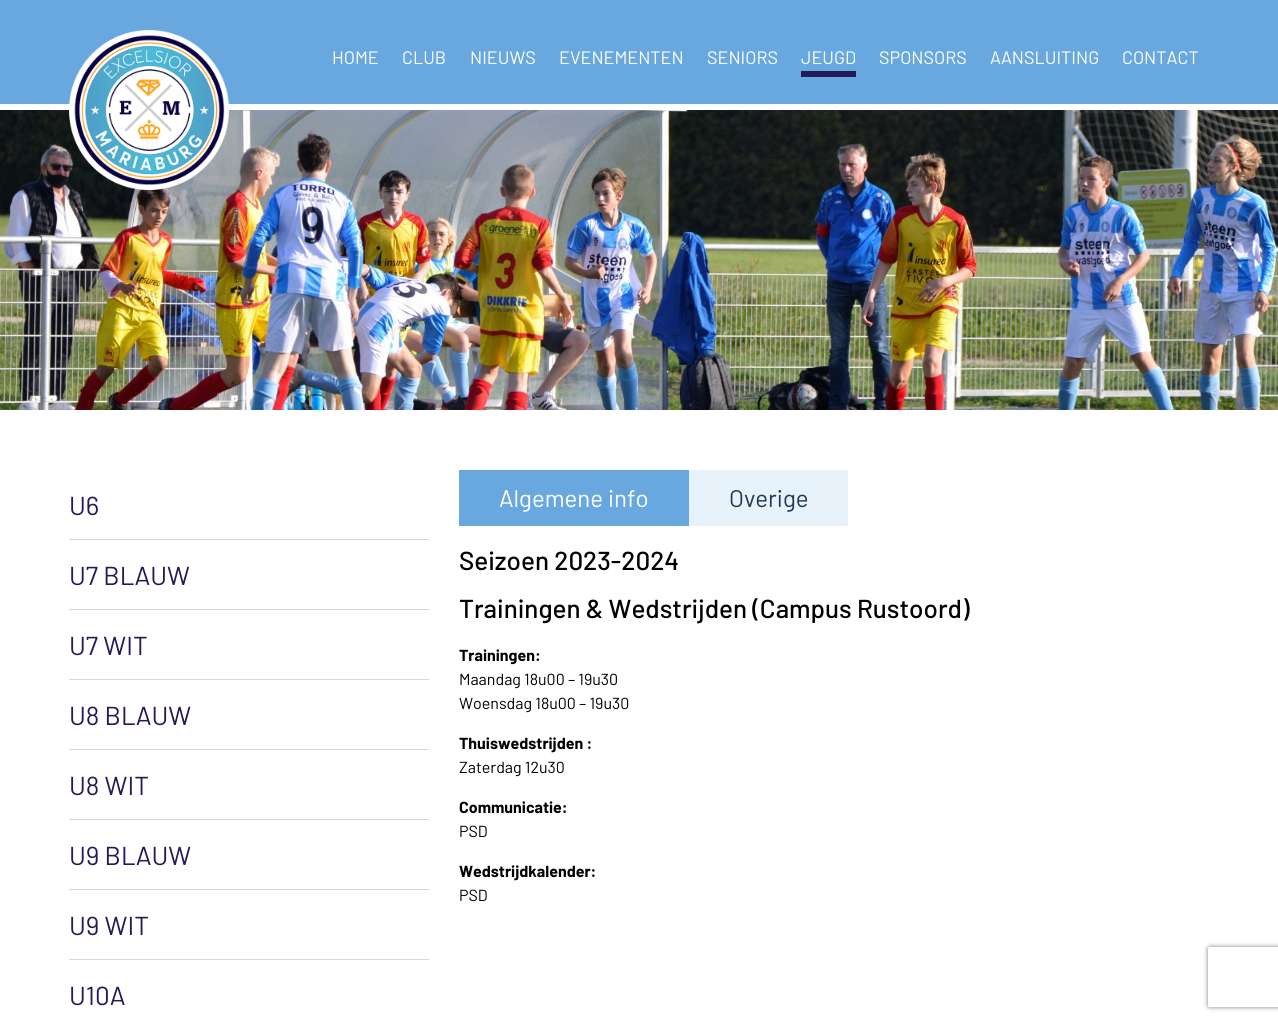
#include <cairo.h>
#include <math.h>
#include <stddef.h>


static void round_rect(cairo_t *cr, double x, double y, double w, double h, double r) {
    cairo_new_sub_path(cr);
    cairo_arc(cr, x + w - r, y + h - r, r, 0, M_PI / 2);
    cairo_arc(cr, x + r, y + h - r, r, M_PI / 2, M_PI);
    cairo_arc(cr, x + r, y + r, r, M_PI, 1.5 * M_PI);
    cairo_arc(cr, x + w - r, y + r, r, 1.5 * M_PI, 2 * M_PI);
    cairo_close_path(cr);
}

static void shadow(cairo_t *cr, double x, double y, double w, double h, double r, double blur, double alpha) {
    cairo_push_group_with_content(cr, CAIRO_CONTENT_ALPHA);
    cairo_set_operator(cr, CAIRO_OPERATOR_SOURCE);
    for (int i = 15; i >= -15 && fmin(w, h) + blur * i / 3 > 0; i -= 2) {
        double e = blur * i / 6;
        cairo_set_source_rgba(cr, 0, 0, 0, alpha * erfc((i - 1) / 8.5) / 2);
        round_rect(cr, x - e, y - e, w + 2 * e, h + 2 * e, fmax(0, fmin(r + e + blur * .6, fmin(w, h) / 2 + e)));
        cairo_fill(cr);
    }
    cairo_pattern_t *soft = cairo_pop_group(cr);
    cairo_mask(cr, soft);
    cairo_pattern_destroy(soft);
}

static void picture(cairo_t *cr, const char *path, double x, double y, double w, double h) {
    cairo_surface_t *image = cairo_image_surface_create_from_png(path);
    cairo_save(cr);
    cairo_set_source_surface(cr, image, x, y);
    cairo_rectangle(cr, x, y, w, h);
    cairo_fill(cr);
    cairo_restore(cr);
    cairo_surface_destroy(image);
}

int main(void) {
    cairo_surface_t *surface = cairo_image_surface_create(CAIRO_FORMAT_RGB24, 1278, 1021);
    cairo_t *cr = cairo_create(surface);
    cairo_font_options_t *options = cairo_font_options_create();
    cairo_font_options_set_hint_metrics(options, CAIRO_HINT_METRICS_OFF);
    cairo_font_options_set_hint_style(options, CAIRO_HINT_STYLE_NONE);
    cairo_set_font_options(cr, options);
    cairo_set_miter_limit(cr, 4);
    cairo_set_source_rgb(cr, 1, 1, 1);
    cairo_paint(cr);
    cairo_set_source_rgb(cr, 0.408, 0.659, 0.871);
    cairo_rectangle(cr, 0, 0, 1278, 104);
    cairo_fill(cr);
    picture(cr, "img2.png", 0, 110, 1278, 300);
    picture(cr, "img1.png", 69, 30, 160, 160);
    cairo_select_font_face(cr, "Barlow", CAIRO_FONT_SLANT_NORMAL, CAIRO_FONT_WEIGHT_NORMAL);
    cairo_set_font_size(cr, 18);
    cairo_set_source_rgb(cr, 1, 1, 1);
    cairo_move_to(cr, 332, 64);
    cairo_show_text(cr, "HOME");
    cairo_move_to(cr, 402, 64);
    cairo_show_text(cr, "CLUB");
    cairo_move_to(cr, 470, 64);
    cairo_show_text(cr, "NIEUWS");
    cairo_move_to(cr, 559, 64);
    cairo_show_text(cr, "EVENEMENTEN");
    cairo_move_to(cr, 707, 64);
    cairo_show_text(cr, "SENIORS");
    cairo_move_to(cr, 801, 64);
    cairo_show_text(cr, "JEUGD");
    cairo_set_source_rgb(cr, 0.137, 0.106, 0.341);
    cairo_rectangle(cr, 801, 71, 55, 6);
    cairo_fill(cr);
    cairo_set_source_rgb(cr, 1, 1, 1);
    cairo_move_to(cr, 879, 64);
    cairo_show_text(cr, "SPONSORS");
    cairo_move_to(cr, 990, 64);
    cairo_show_text(cr, "AANSLUITING");
    cairo_move_to(cr, 1122, 64);
    cairo_show_text(cr, "CONTACT");
    cairo_set_source_rgb(cr, 0.851, 0.851, 0.851);
    cairo_rectangle(cr, 69, 539, 360, 1);
    cairo_fill(cr);
    cairo_set_font_size(cr, 26);
    cairo_set_source_rgb(cr, 0.137, 0.106, 0.341);
    cairo_move_to(cr, 69, 515);
    cairo_show_text(cr, "U6");
    cairo_set_source_rgb(cr, 0.851, 0.851, 0.851);
    cairo_rectangle(cr, 69, 609, 360, 1);
    cairo_fill(cr);
    cairo_set_source_rgb(cr, 0.137, 0.106, 0.341);
    cairo_move_to(cr, 69, 585);
    cairo_show_text(cr, "U7 BLAUW");
    cairo_set_source_rgb(cr, 0.851, 0.851, 0.851);
    cairo_rectangle(cr, 69, 679, 360, 1);
    cairo_fill(cr);
    cairo_set_source_rgb(cr, 0.137, 0.106, 0.341);
    cairo_move_to(cr, 69, 655);
    cairo_show_text(cr, "U7 WIT");
    cairo_set_source_rgb(cr, 0.851, 0.851, 0.851);
    cairo_rectangle(cr, 69, 749, 360, 1);
    cairo_fill(cr);
    cairo_set_source_rgb(cr, 0.137, 0.106, 0.341);
    cairo_move_to(cr, 69, 725);
    cairo_show_text(cr, "U8 BLAUW");
    cairo_set_source_rgb(cr, 0.851, 0.851, 0.851);
    cairo_rectangle(cr, 69, 819, 360, 1);
    cairo_fill(cr);
    cairo_set_source_rgb(cr, 0.137, 0.106, 0.341);
    cairo_move_to(cr, 69, 795);
    cairo_show_text(cr, "U8 WIT");
    cairo_set_source_rgb(cr, 0.851, 0.851, 0.851);
    cairo_rectangle(cr, 69, 889, 360, 1);
    cairo_fill(cr);
    cairo_set_source_rgb(cr, 0.137, 0.106, 0.341);
    cairo_move_to(cr, 69, 865);
    cairo_show_text(cr, "U9 BLAUW");
    cairo_set_source_rgb(cr, 0.851, 0.851, 0.851);
    cairo_rectangle(cr, 69, 959, 360, 1);
    cairo_fill(cr);
    cairo_set_source_rgb(cr, 0.137, 0.106, 0.341);
    cairo_move_to(cr, 69, 935);
    cairo_show_text(cr, "U9 WIT");
    cairo_move_to(cr, 69, 1005);
    cairo_show_text(cr, "U10A");
    cairo_set_source_rgb(cr, 0.408, 0.659, 0.871);
    cairo_rectangle(cr, 459, 470, 230, 56);
    cairo_fill(cr);
    cairo_set_font_size(cr, 24);
    cairo_set_source_rgb(cr, 1, 1, 1);
    cairo_move_to(cr, 499, 507);
    cairo_show_text(cr, "Algemene info");
    cairo_set_source_rgb(cr, 0.91, 0.949, 0.984);
    cairo_rectangle(cr, 689, 470, 159, 56);
    cairo_fill(cr);
    cairo_set_source_rgb(cr, 0.125, 0.227, 0.333);
    cairo_move_to(cr, 729, 507);
    cairo_show_text(cr, "Overige");
    cairo_select_font_face(cr, "Barlow Medium", CAIRO_FONT_SLANT_NORMAL, CAIRO_FONT_WEIGHT_NORMAL);
    cairo_set_font_size(cr, 26);
    cairo_set_source_rgb(cr, 0, 0, 0);
    cairo_move_to(cr, 459, 570);
    cairo_show_text(cr, "Seizoen 2023-2024");
    cairo_move_to(cr, 459, 618);
    cairo_show_text(cr, "Trainingen & Wedstrijden (Campus Rustoord)");
    cairo_select_font_face(cr, "Barlow", CAIRO_FONT_SLANT_NORMAL, CAIRO_FONT_WEIGHT_BOLD);
    cairo_set_font_size(cr, 16);
    cairo_move_to(cr, 459, 661);
    cairo_show_text(cr, "Trainingen:");
    cairo_select_font_face(cr, "Barlow", CAIRO_FONT_SLANT_NORMAL, CAIRO_FONT_WEIGHT_NORMAL);
    cairo_move_to(cr, 459, 685);
    cairo_show_text(cr, "Maandag 18u00 – 19u30");
    cairo_move_to(cr, 459, 709);
    cairo_show_text(cr, "Woensdag 18u00 – 19u30");
    cairo_select_font_face(cr, "Barlow", CAIRO_FONT_SLANT_NORMAL, CAIRO_FONT_WEIGHT_BOLD);
    cairo_move_to(cr, 459, 749);
    cairo_show_text(cr, "Thuiswedstrijden :");
    cairo_select_font_face(cr, "Barlow", CAIRO_FONT_SLANT_NORMAL, CAIRO_FONT_WEIGHT_NORMAL);
    cairo_move_to(cr, 459, 773);
    cairo_show_text(cr, "Zaterdag 12u30");
    cairo_select_font_face(cr, "Barlow", CAIRO_FONT_SLANT_NORMAL, CAIRO_FONT_WEIGHT_BOLD);
    cairo_move_to(cr, 459, 813);
    cairo_show_text(cr, "Communicatie:");
    cairo_select_font_face(cr, "Barlow", CAIRO_FONT_SLANT_NORMAL, CAIRO_FONT_WEIGHT_NORMAL);
    cairo_move_to(cr, 459, 837);
    cairo_show_text(cr, "PSD");
    cairo_select_font_face(cr, "Barlow", CAIRO_FONT_SLANT_NORMAL, CAIRO_FONT_WEIGHT_BOLD);
    cairo_move_to(cr, 459, 877);
    cairo_show_text(cr, "Wedstrijdkalender:");
    cairo_select_font_face(cr, "Barlow", CAIRO_FONT_SLANT_NORMAL, CAIRO_FONT_WEIGHT_NORMAL);
    cairo_move_to(cr, 459, 901);
    cairo_show_text(cr, "PSD");
    cairo_save(cr);
    cairo_set_fill_rule(cr, CAIRO_FILL_RULE_EVEN_ODD);
    cairo_new_path(cr);
    cairo_move_to(cr, 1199, 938);
    cairo_line_to(cr, 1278, 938);
    cairo_line_to(cr, 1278, 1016);
    cairo_line_to(cr, 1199, 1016);
    cairo_close_path(cr);
    cairo_move_to(cr, 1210, 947);
    cairo_line_to(cr, 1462, 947);
    cairo_curve_to(cr, 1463, 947, 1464, 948, 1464, 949);
    cairo_line_to(cr, 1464, 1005);
    cairo_curve_to(cr, 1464, 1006, 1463, 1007, 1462, 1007);
    cairo_line_to(cr, 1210, 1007);
    cairo_curve_to(cr, 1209, 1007, 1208, 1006, 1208, 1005);
    cairo_line_to(cr, 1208, 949);
    cairo_curve_to(cr, 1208, 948, 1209, 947, 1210, 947);
    cairo_close_path(cr);
    cairo_clip(cr);
    cairo_set_source_rgb(cr, 0.502, 0.502, 0.502);
    shadow(cr, 1208, 947, 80, 60, 2, 2.5, 1);
    cairo_restore(cr);
    cairo_surface_write_to_png(surface, "page.png");
    cairo_font_options_destroy(options);
    cairo_destroy(cr);
    cairo_surface_destroy(surface);
    return 0;
}
